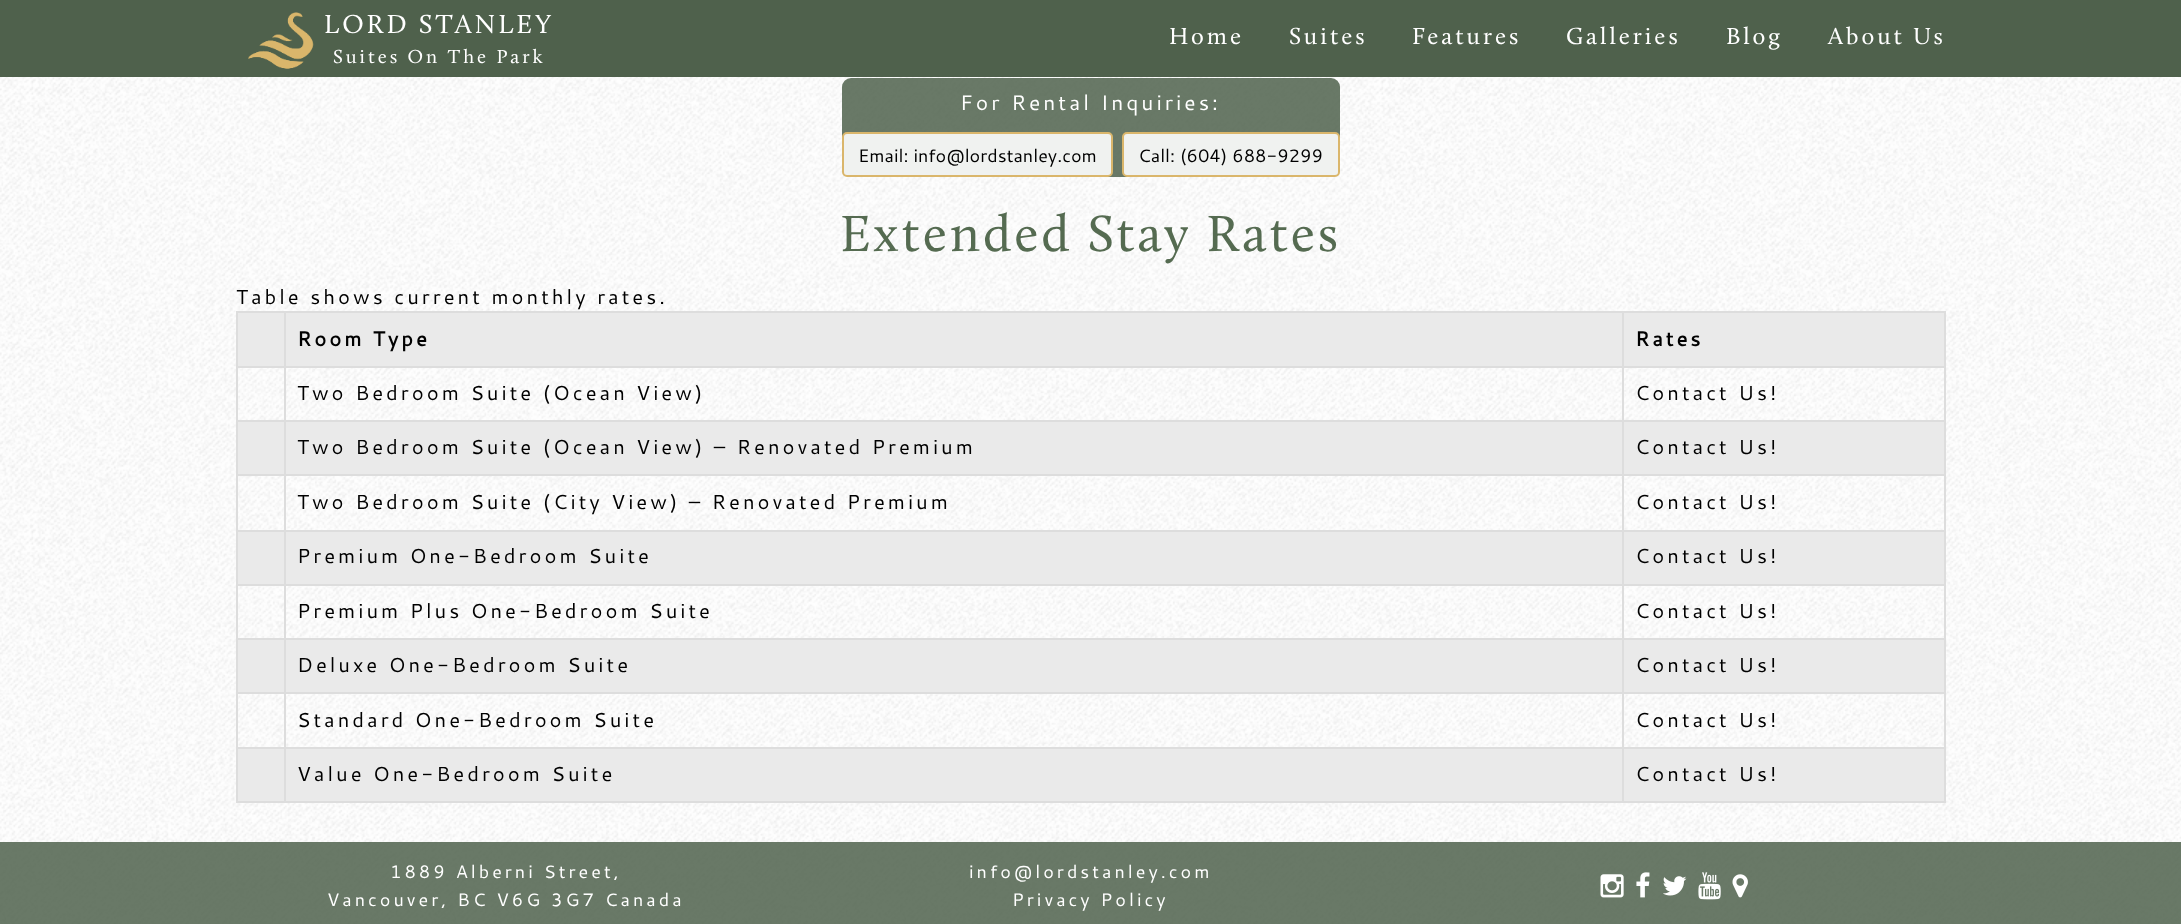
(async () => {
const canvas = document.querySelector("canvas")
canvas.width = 2181
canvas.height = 924
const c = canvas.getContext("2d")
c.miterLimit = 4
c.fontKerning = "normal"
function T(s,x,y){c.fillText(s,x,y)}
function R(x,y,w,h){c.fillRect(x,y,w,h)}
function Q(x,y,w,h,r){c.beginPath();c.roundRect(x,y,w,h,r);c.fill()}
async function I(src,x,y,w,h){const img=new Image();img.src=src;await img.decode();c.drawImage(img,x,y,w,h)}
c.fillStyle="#fff"
R(0,0,2181,924)
await I("1.png",0,77,2181,847)
c.fillStyle="#4f614c"
R(0,0,2181,77)
await I("2.png",248,12,66,57)
c.letterSpacing="3px"
c.font="27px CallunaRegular"
c.fillStyle="#fff"
T("LORD STANLEY",324,33)
c.font="19.5px CallunaRegular"
T("Suites On The Park",333,63)
c.font="24px CallunaRegular"
T("Home",1169,44)
T("Suites",1289,44)
T("Features",1412,44)
T("Galleries",1566,44)
T("Blog",1726,44)
T("About Us",1828,44)
c.fillStyle="#4f614cd9"
Q(842,78,498,99,9)
c.font="21px Cantarell"
c.fillStyle="#fff"
T("For Rental Inquiries:",960,110)
c.fillStyle="#ffffffe6"
c.beginPath()
c.roundRect(843,133,269,43,4)
c.fill()
c.strokeStyle="#dab66b"
c.lineWidth=2
c.stroke()
c.letterSpacing="0px"
c.font="18px Cantarell"
c.fillStyle="#000"
T("Email: info@lordstanley.com",858,162)
c.fillStyle="#ffffffe6"
c.beginPath()
c.roundRect(1123,133,216,43,4)
c.fill()
c.stroke()
c.fillStyle="#000"
T("Call: (604) 688-9299",1138,162)
c.letterSpacing="3px"
c.font="52.5px CallunaRegular"
c.fillStyle="#556b51"
T("Extended Stay Rates",840,251)
c.font="20.25px Cantarell"
c.fillStyle="#000"
T("Table shows current monthly rates.",236,304)
c.fillStyle="#ddd"
R(236,311,1710,2)
R(1944,311,2,492)
R(236,801,1710,2)
R(236,311,2,492)
c.fillStyle="#eaeaea"
R(238,313,1706,53)
c.fillStyle="#ddd"
R(1622,366,324,2)
R(1622,420,324,2)
c.fillStyle="#eaeaea"
R(238,422,1706,52)
c.fillStyle="#ddd"
R(1622,474,324,2)
R(1622,530,324,2)
c.fillStyle="#eaeaea"
R(238,532,1706,52)
c.fillStyle="#ddd"
R(1622,584,324,2)
R(1622,638,324,2)
c.fillStyle="#eaeaea"
R(238,640,1706,52)
c.fillStyle="#ddd"
R(1622,692,324,2)
R(1622,747,324,2)
c.fillStyle="#eaeaea"
R(238,749,1706,52)
c.fillStyle="#ddd"
R(1622,747,2,56)
R(284,747,1339,2)
R(1622,692,2,57)
R(284,692,1339,2)
R(1622,638,2,55)
R(284,638,1339,2)
R(1622,584,2,55)
R(284,584,1339,2)
R(1622,530,2,55)
R(284,530,1339,2)
R(1622,474,2,57)
R(284,474,1339,2)
R(1622,420,2,56)
R(284,420,1339,2)
R(1622,366,2,56)
R(284,366,1339,2)
R(284,747,2,56)
R(236,747,49,2)
R(284,692,2,57)
R(236,692,49,2)
R(284,638,2,55)
R(236,638,49,2)
R(284,584,2,55)
R(236,584,49,2)
R(284,530,2,55)
R(236,530,49,2)
R(284,474,2,57)
R(236,474,49,2)
R(284,420,2,56)
R(236,420,49,2)
R(284,366,2,56)
R(236,366,49,2)
R(284,311,2,57)
c.font="bold 20.25px Cantarell"
c.fillStyle="#000"
T("Room Type",297,346)
c.fillStyle="#ddd"
R(1622,311,2,57)
c.fillStyle="#000"
T("Rates",1635,346)
c.font="20.25px Cantarell"
T("Two Bedroom Suite (Ocean View)",297,400)
T("Contact Us!",1635,400)
T("Two Bedroom Suite (Ocean View) – Renovated Premium",297,454)
T("Contact Us!",1635,454)
T("Two Bedroom Suite (City View) – Renovated Premium",297,509)
T("Contact Us!",1635,509)
T("Premium One-Bedroom Suite",297,563)
T("Contact Us!",1635,563)
T("Premium Plus One-Bedroom Suite",297,618)
T("Contact Us!",1635,618)
T("Deluxe One-Bedroom Suite",297,672)
T("Contact Us!",1635,672)
T("Standard One-Bedroom Suite",297,727)
T("Contact Us!",1635,727)
T("Value One-Bedroom Suite",297,781)
T("Contact Us!",1635,781)
c.fillStyle="#4f614cd9"
R(0,842,2181,82)
c.font="18px Cantarell"
c.fillStyle="#fff"
T("1889 Alberni Street,",390,878)
T("Vancouver, BC V6G 3G7 Canada",327,906)
T("info@lordstanley.com",969,878)
T("Privacy Policy",1012,906)
await I("3.png",1600,874,24,24)
await I("4.png",1636,872,14,26)
await I("5.png",1663,876,24,20)
await I("6.png",1698,872,23,28)
await I("7.png",1732,874,16,24)
})()
